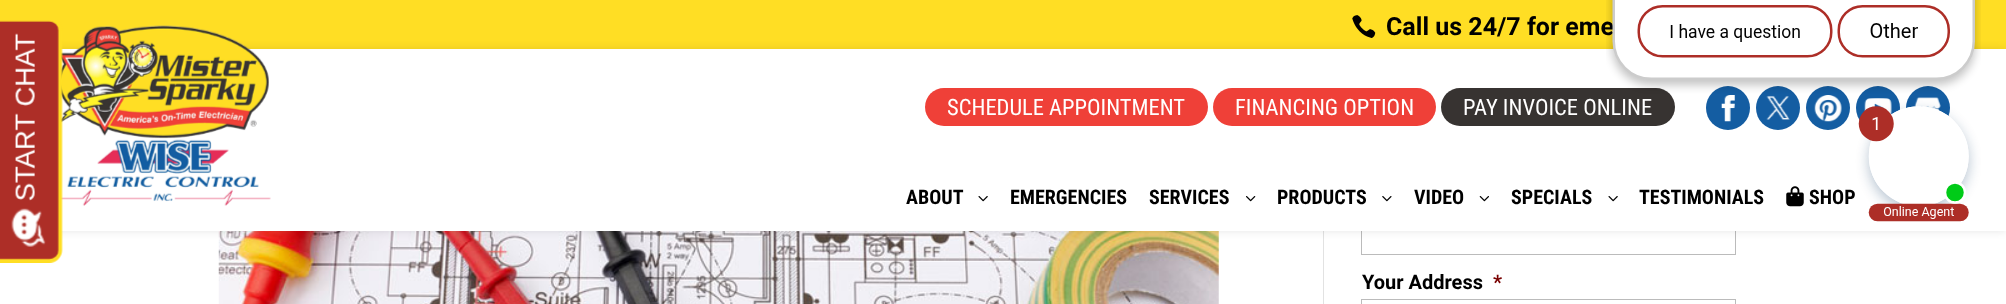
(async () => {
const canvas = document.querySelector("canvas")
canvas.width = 2006
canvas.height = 304
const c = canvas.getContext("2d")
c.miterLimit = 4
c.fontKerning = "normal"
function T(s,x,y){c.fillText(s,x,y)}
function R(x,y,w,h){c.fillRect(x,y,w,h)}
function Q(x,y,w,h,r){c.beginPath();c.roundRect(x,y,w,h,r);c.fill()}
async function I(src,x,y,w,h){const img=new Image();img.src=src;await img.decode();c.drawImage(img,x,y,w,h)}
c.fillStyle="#fff"
R(0,0,2006,304)
c.fillStyle="#ffde24"
R(0,0,2006,49)
c.font="bold 25px Roboto"
c.fillStyle="#000"
T("Call us 24/7 for eme",1386,35)
await I("3.png",1352,15,24,23)
c.fillStyle="#e2e2e2"
R(1323,231,1,73)
await I("15.png",218,231,1001,73)
c.strokeStyle="#bbb"
c.strokeRect(1361.5,216.5,374,38)
c.fillStyle="#0000001a"
c.filter="blur(4.5px)"
c.beginPath()
c.rect(0,49,2006,182)
c.fill()
c.filter="none"
c.fillStyle="#fff"
R(61,49,1945,182)
c.fillStyle="#373331"
Q(1441,88,234,38,19)
c.font="22.5px Roboto Condensed"
c.fillStyle="#fff"
T("PAY INVOICE ONLINE",1463,115)
c.fillStyle="#145da2"
c.beginPath()
c.arc(1728,108,22,0,7)
c.fill()
await I("5.png",1721,95,14,27)
c.beginPath()
c.arc(1778,108,22,0,7)
c.fill()
await I("6.png",1766,95,24,25)
c.beginPath()
c.arc(1828,108,22,0,7)
c.fill()
await I("7.png",1814,95,28,27)
c.beginPath()
c.arc(1878,108,22,0,7)
c.fill()
await I("8.png",1864,98,28,17)
c.beginPath()
c.arc(1928,108,22,0,7)
c.fill()
await I("9.png",1914,97,27,14)
await I("10.png",1608,196,10,6)
c.font="bold 20px Roboto Condensed"
c.fillStyle="#000"
T("TESTIMONIALS",1639,204)
await I("14.png",1786,186,18,21)
T("SHOP",1809,204)
await I("1.png",1606,0,375,222)
await I("4.png",61,25,210,181)
await I("2.png",0,20,63,243)
c.fillStyle="#ef4038"
Q(925,88,283,38,19)
c.font="22.5px Roboto Condensed"
c.fillStyle="#fff"
T("SCHEDULE APPOINTMENT",947,115)
c.fillStyle="#ef4038"
Q(1213,88,223,38,19)
c.fillStyle="#fff"
T("FINANCING OPTION",1235,115)
c.font="bold 20px Roboto Condensed"
c.fillStyle="#000"
T("ABOUT",906,204)
await I("10.png",978,196,10,6)
T("EMERGENCIES",1010,204)
T("SERVICES",1149,204)
await I("11.png",1246,196,10,6)
T("PRODUCTS",1277,204)
await I("12.png",1382,196,10,6)
T("VIDEO",1414,204)
await I("13.png",1479,196,10,6)
T("SPECIALS",1511,204)
c.font="bold 20px Roboto"
T("Your Address",1362,289)
c.fillStyle="#790000"
T("*",1493,289)
c.strokeRect(1361.5,299.5,374,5)
})()
